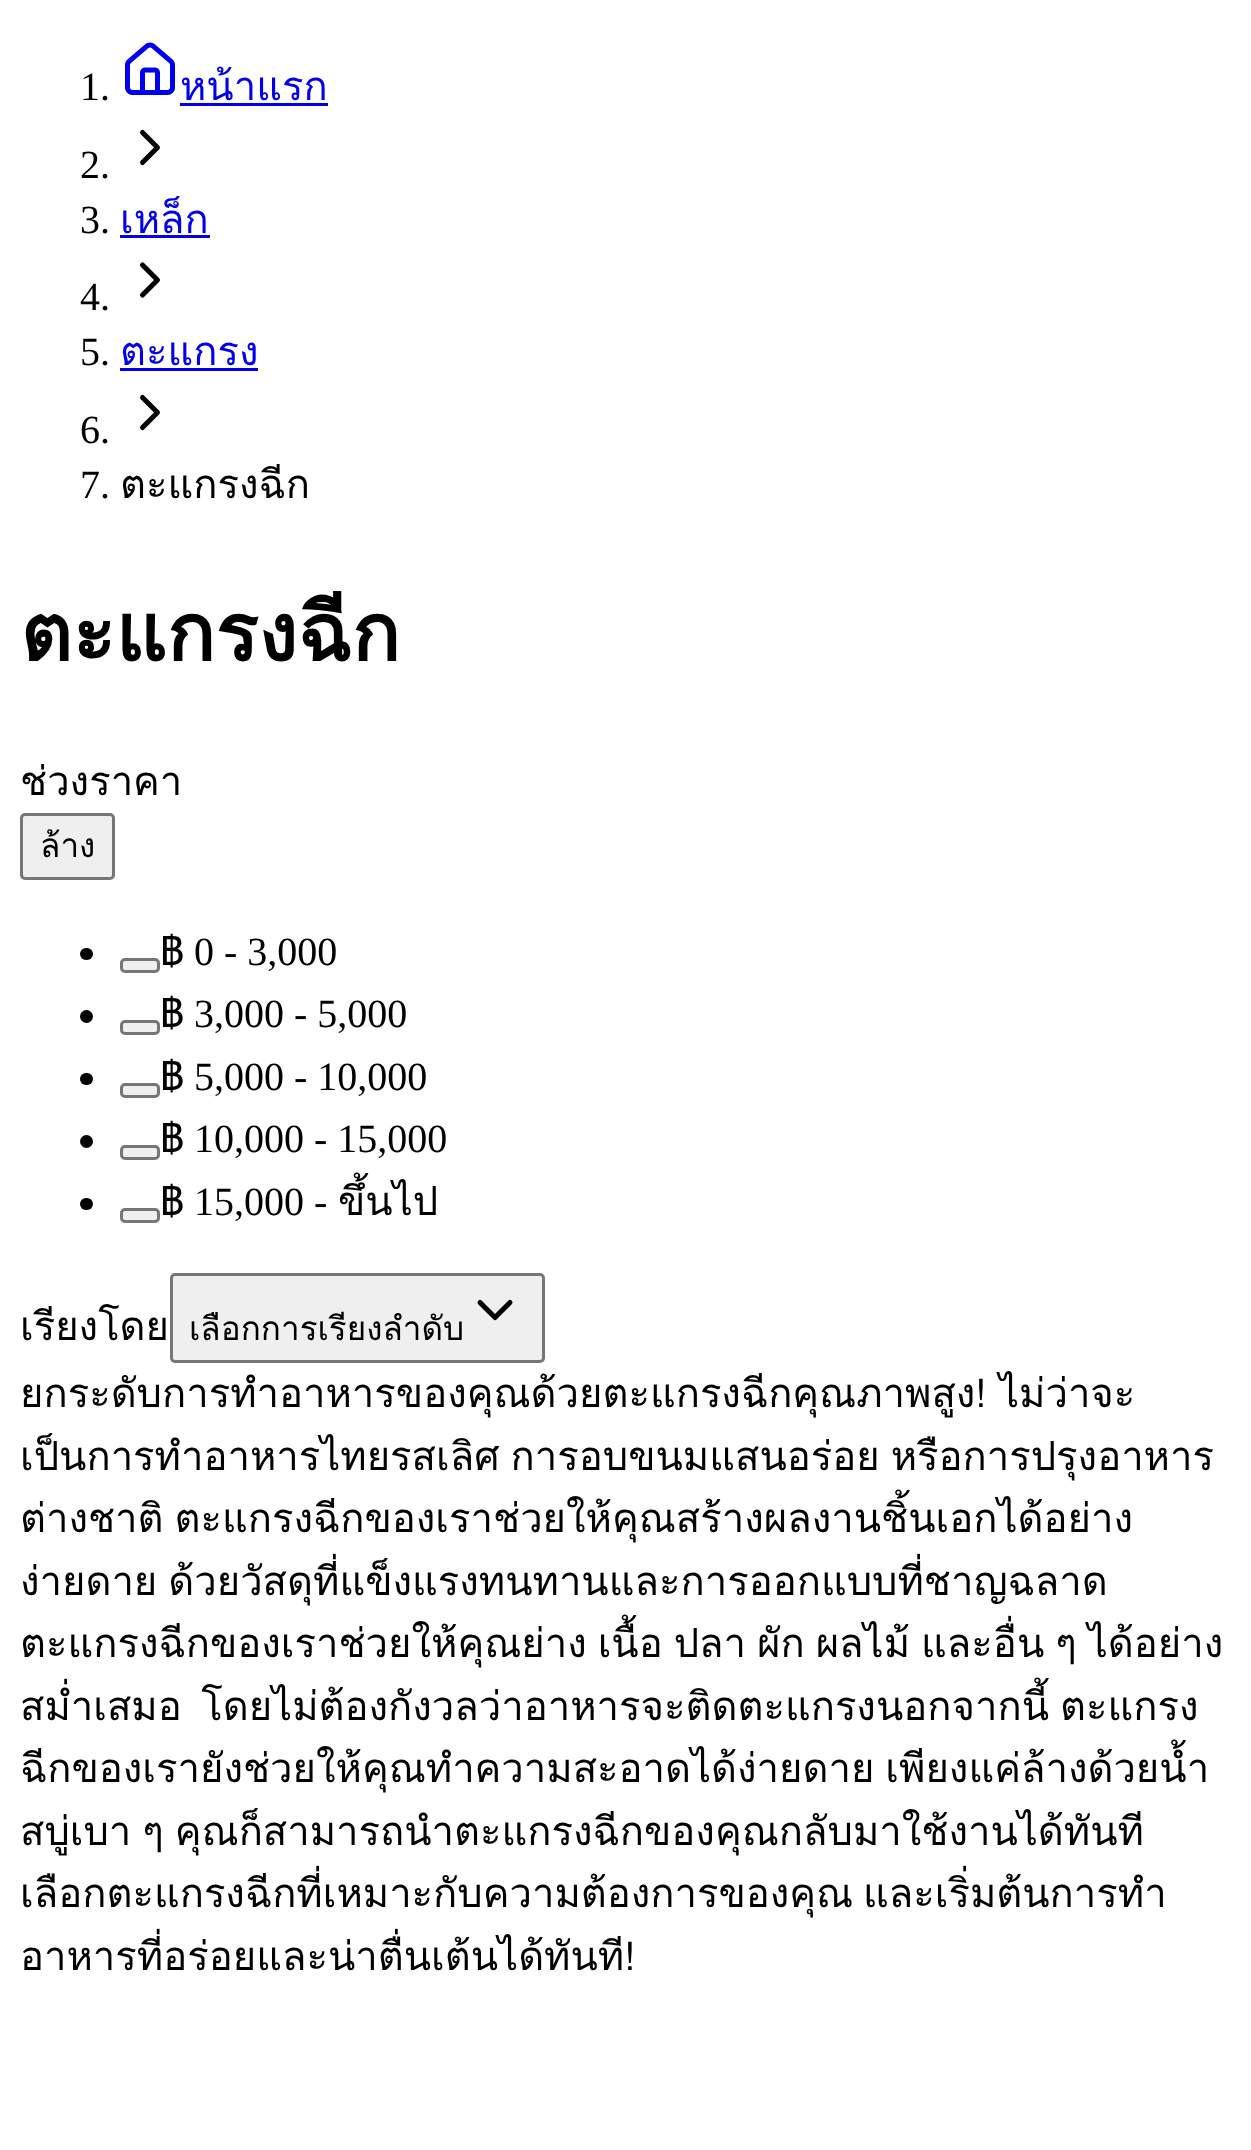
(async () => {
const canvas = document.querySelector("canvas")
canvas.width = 1251
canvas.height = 2150
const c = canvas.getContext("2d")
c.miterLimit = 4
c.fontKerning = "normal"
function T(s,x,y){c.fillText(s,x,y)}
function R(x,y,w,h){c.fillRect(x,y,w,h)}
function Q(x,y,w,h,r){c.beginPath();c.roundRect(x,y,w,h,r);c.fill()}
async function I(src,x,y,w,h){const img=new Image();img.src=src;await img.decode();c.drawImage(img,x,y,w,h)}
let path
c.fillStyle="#fff"
R(0,0,1251,2150)
c.font="40px Liberation Serif"
c.fillStyle="#000"
T("1.",80,100)
await I("1.png",125,42,50,53)
c.font="40px Loma"
c.fillStyle="#00e"
T("หน้าแรก",180,100)
R(180,103,148,3)
c.font="40px Liberation Serif"
c.fillStyle="#000"
T("2.",80,178)
path = new Path2D("M142.5 162.5l15-15l-15-15")
c.strokeStyle="#000"
c.lineWidth=5
c.lineCap="round"
c.lineJoin="round"
c.stroke(path)
T("3.",80,233)
c.font="40px Loma"
c.fillStyle="#00e"
T("เหล็ก",120,233)
R(120,235,90,3)
c.font="40px Liberation Serif"
c.fillStyle="#000"
T("4.",80,310)
path = new Path2D("M142.5 295l15-15l-15-15")
c.stroke(path)
T("5.",80,365)
c.font="40px Loma"
c.fillStyle="#00e"
T("ตะแกรง",120,365)
R(120,368,138,3)
c.font="40px Liberation Serif"
c.fillStyle="#000"
T("6.",80,443)
path = new Path2D("M142.5 427.5l15-15l-15-15")
c.stroke(path)
T("7.",80,498)
c.font="40px Loma"
T("ตะแกรงฉีก",120,498)
c.font="bold 80px Loma"
T("ตะแกรงฉีก",20,661)
c.font="40px Loma"
T("ช่วงราคา",20,795)
c.fillStyle="#efefef"
c.beginPath()
c.roundRect(21.5,814.5,92,64,3.5)
c.fill()
c.strokeStyle="#767676"
c.lineWidth=3
c.lineJoin="miter"
c.stroke()
c.font="33.25px Loma"
c.fillStyle="#000"
T("ล้าง",40,857)
Q(80,948,13,12,6)
c.fillStyle="#efefef"
c.beginPath()
c.roundRect(121.5,959.5,37,12,3.5)
c.fill()
c.stroke()
c.font="40px Loma"
c.fillStyle="#000"
T("฿",160,965)
c.font="40px Liberation Serif"
T("0 - 3,000",194,965)
c.beginPath()
c.arc(86.5,1016.5,6.5,0,7)
c.fill()
c.fillStyle="#efefef"
c.beginPath()
c.roundRect(121.5,1021.5,37,12,3.5)
c.fill()
c.stroke()
c.font="40px Loma"
c.fillStyle="#000"
T("฿",160,1027)
c.font="40px Liberation Serif"
T("3,000 - 5,000",194,1027)
Q(80,1073,13,12,6)
c.fillStyle="#efefef"
c.beginPath()
c.roundRect(121.5,1084.5,37,12,3.5)
c.fill()
c.stroke()
c.font="40px Loma"
c.fillStyle="#000"
T("฿",160,1090)
c.font="40px Liberation Serif"
T("5,000 - 10,000",194,1090)
c.beginPath()
c.arc(86.5,1141.5,6.5,0,7)
c.fill()
c.fillStyle="#efefef"
c.beginPath()
c.roundRect(121.5,1146.5,37,12,3.5)
c.fill()
c.stroke()
c.font="40px Loma"
c.fillStyle="#000"
T("฿",160,1152)
c.font="40px Liberation Serif"
T("10,000 - 15,000",194,1152)
Q(80,1198,13,12,6)
c.fillStyle="#efefef"
c.beginPath()
c.roundRect(121.5,1209.5,37,12,3.5)
c.fill()
c.stroke()
c.font="40px Loma"
c.fillStyle="#000"
T("฿",160,1215)
c.font="40px Liberation Serif"
T("15,000 -",194,1215)
c.font="40px Loma"
T("ขึ้นไป",338,1215)
T("เรียงโดย",20,1340)
c.fillStyle="#efefef"
c.beginPath()
c.roundRect(171.5,1274.5,372,87,3.5)
c.fill()
c.stroke()
c.font="33.25px Loma"
c.fillStyle="#000"
T("เลือกการเรียงลำดับ",189,1340)
path = new Path2D("M480 1302.5l15 15l15-15")
c.strokeStyle="#000"
c.lineWidth=5
c.lineJoin="round"
c.stroke(path)
c.wordSpacing="-1px"
c.font="40px Loma"
T("ยกระดับการทำอาหารของคุณด้วยตะแกรงฉีกคุณภาพสูง! ไม่ว่าจะ",20,1407)
c.wordSpacing="-2.5px"
T("เป็นการทำอาหารไทยรสเลิศ การอบขนมแสนอร่อย หรือการปรุงอาหาร",20,1470)
T("ต่างชาติ ตะแกรงฉีกของเราช่วยให้คุณสร้างผลงานชิ้นเอกได้อย่าง",20,1532)
T("ง่ายดาย ด้วยวัสดุที่แข็งแรงทนทานและการออกแบบที่ชาญฉลาด",20,1595)
T("ตะแกรงฉีกของเราช่วยให้คุณย่าง เนื้อ ปลา ผัก ผลไม้ และอื่น ๆ ได้อย่าง",20,1657)
c.wordSpacing="6px"
T("สม่ำเสมอ โดยไม่ต้องกังวลว่าอาหารจะติดตะแกรง",20,1720)
c.wordSpacing="-2.5px"
T("นอกจากนี้ ตะแกรง",876,1720)
T("ฉีกของเรายังช่วยให้คุณทำความสะอาดได้ง่ายดาย เพียงแค่ล้างด้วยน้ำ",20,1782)
T("สบู่เบา ๆ คุณก็สามารถนำตะแกรงฉีกของคุณกลับมาใช้งานได้ทันที",20,1845)
c.wordSpacing="0px"
T("เลือกตะแกรงฉีกที่เหมาะกับความต้องการของคุณ",20,1907)
T("และเริ่มต้นการทำ",863,1907)
T("อาหารที่อร่อยและน่าตื่นเต้นได้ทันที!",20,1970)
})()
